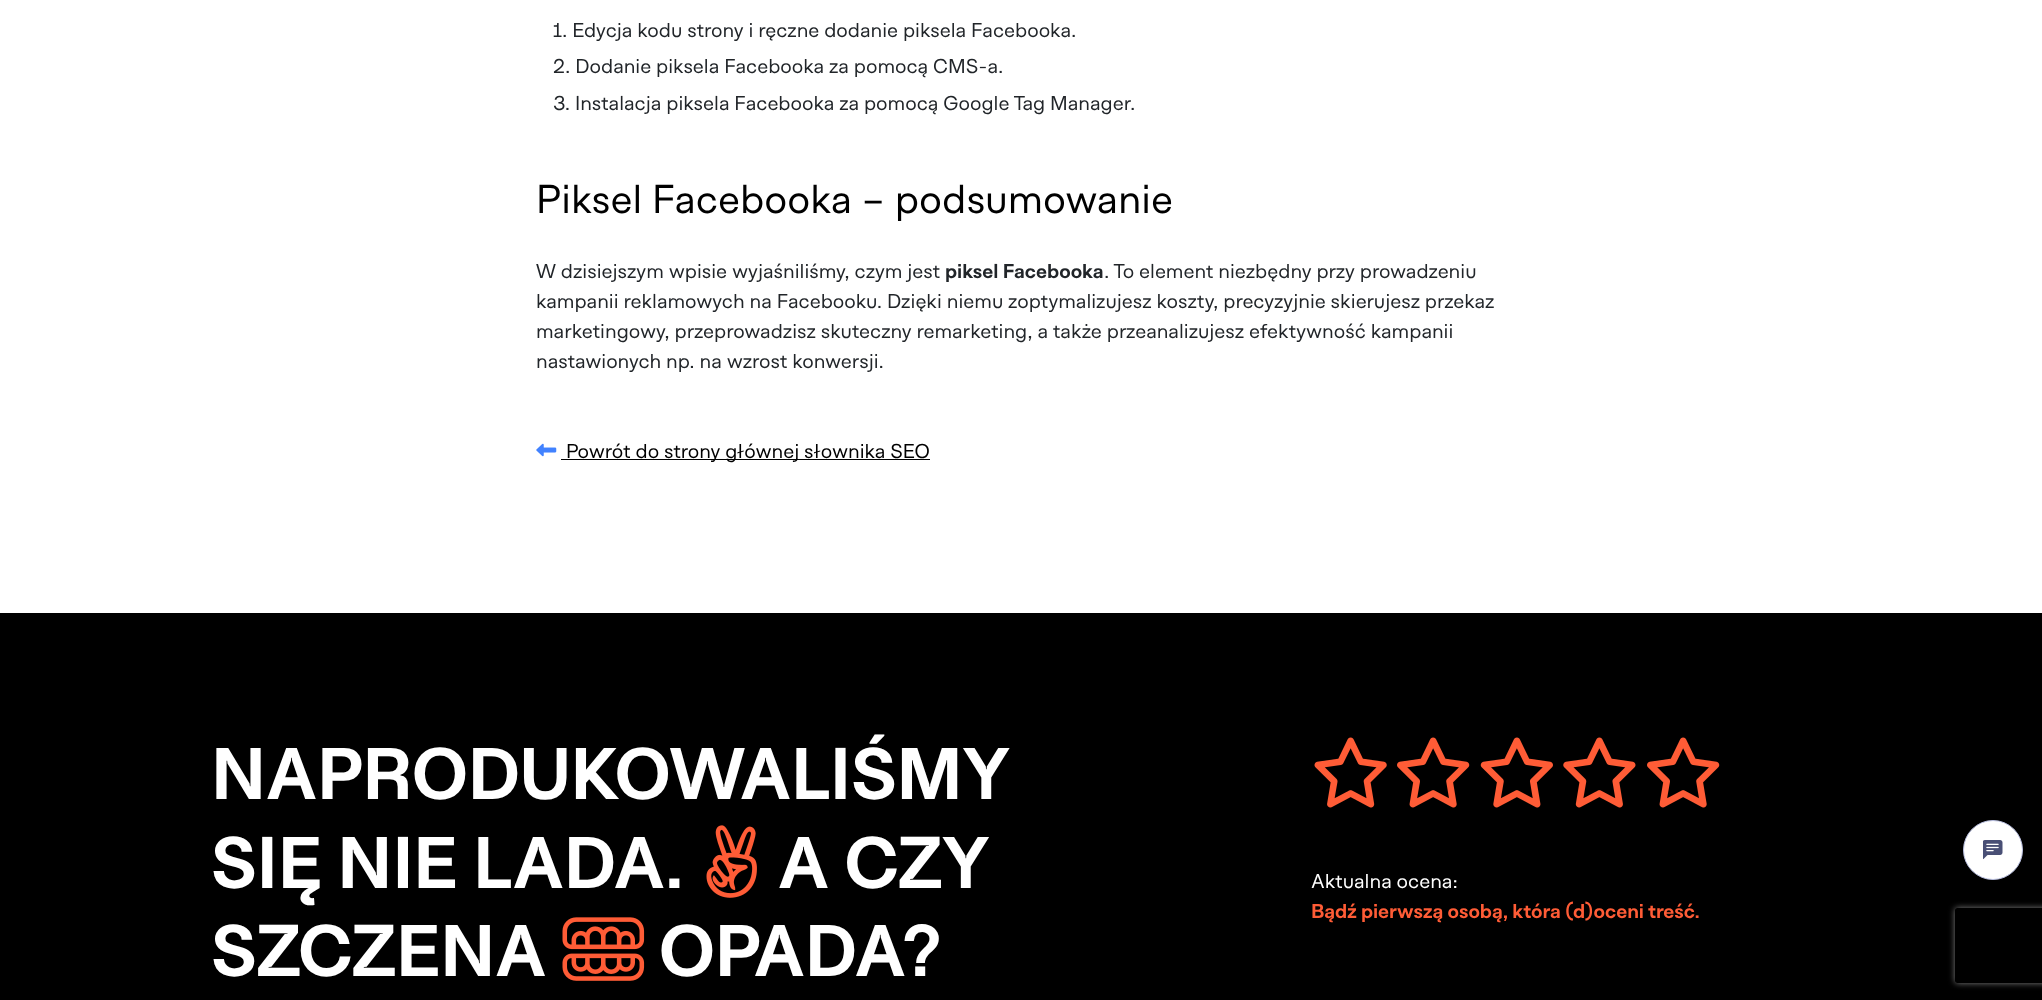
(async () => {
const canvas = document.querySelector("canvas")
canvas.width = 2042
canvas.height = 1000
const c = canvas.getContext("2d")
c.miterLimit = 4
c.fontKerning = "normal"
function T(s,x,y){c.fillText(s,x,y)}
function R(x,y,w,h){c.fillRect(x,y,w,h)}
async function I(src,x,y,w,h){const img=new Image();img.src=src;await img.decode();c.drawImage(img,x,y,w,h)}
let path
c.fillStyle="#fff"
R(0,0,2042,1000)
c.font="20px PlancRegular"
c.fillStyle="#212529"
T("1. Edycja kodu strony i ręczne dodanie piksela Facebooka.",553,37)
T("2. Dodanie piksela Facebooka za pomocą CMS-a.",553,73)
T("3. Instalacja piksela Facebooka za pomocą Google Tag Manager.",553,110)
c.font="40px PlancRegular"
c.fillStyle="#000"
T("Piksel Facebooka – podsumowanie",536,213)
c.font="20px PlancRegular"
c.fillStyle="#212529"
T("W dzisiejszym wpisie wyjaśniliśmy, czym jest",536,278)
c.font="bold 20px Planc"
T("piksel Facebooka",945,278)
c.font="20px PlancRegular"
T(". To element niezbędny przy prowadzeniu",1104,278)
T("kampanii reklamowych na Facebooku. Dzięki niemu zoptymalizujesz koszty, precyzyjnie skierujesz przekaz",536,308)
T("marketingowy, przeprowadzisz skuteczny remarketing, a także przeanalizujesz efektywność kampanii",536,338)
T("nastawionych np. na wzrost konwersji.",536,368)
await I("1.png",536,443,21,14)
c.fillStyle="#000"
R(561,459,369,1)
T("Powrót do strony głównej słownika SEO",566,458)
R(0,613,2042,387)
c.font="bold 72.5px Planc"
c.fillStyle="#fff"
T("NAPRODUKOWALIŚMY",211,799)
T("SIĘ NIE LADA.",211,888)
await I("2.png",706,825,51,73)
T("A CZY",778,888)
T("SZCZENA",211,976)
await I("3.png",562,917,83,64)
T("OPADA?",659,976)
await I("4.png",1314,737,73,71)
await I("5.png",1397,737,73,71)
await I("6.png",1480,737,73,71)
await I("7.png",1563,737,73,71)
await I("5.png",1647,737,73,71)
c.font="20px PlancRegular"
T("Aktualna ocena:",1311,888)
c.font="bold 20px Planc"
c.fillStyle="#ff5c36"
T("Bądź pierwszą osobą, która (d)oceni treść.",1311,918)
c.fillStyle="#fff"
c.beginPath()
c.arc(1993,850,29.5,0,7)
c.fill()
c.strokeStyle="#b8bedf"
c.stroke()
await I("8.png",1983,840,20,20)
c.save()
path = new Path2D("M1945 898h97v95h-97zm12.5 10h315c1.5 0 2.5 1 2.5 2.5v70c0 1.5-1 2.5-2.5 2.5h-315c-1.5 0-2.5-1-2.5-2.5v-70c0-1.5 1-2.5 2.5-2.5z")
c.clip(path,"evenodd")
c.fillStyle="#808080"
c.filter="blur(3px)"
c.beginPath()
c.roundRect(1955,908,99,75,2.5)
c.fill()
c.filter="none"
c.restore()
})()
